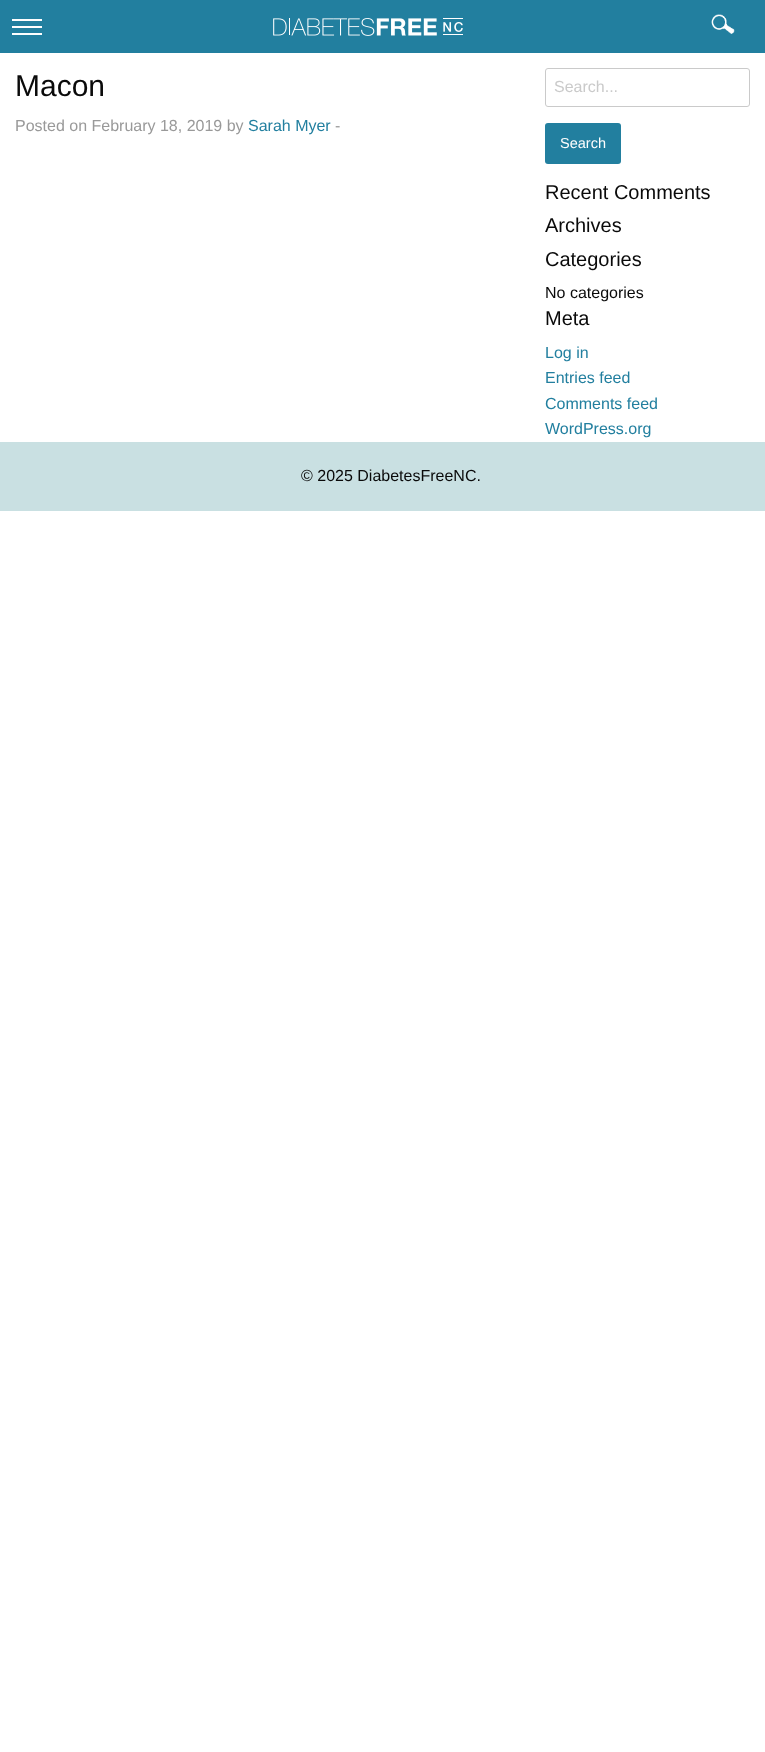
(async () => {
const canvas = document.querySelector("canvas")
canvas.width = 765
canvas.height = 1752
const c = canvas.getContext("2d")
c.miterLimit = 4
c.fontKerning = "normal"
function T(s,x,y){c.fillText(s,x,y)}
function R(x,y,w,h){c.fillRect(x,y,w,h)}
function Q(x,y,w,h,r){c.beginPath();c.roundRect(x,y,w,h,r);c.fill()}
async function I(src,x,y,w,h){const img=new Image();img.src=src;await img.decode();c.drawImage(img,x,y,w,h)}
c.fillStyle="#fff"
R(0,0,765,1752)
c.fillStyle="#227f9f"
R(0,0,765,53)
c.fillStyle="#fefefe"
R(12,33,30,2)
R(12,26,30,2)
R(12,19,30,2)
await I("1.png",273,18,190,18)
await I("2.png",711,14,24,20)
c.font="30px Liberation Sans"
c.fillStyle="#0a0a0a"
T("Macon",15,96)
c.font="16px Liberation Sans"
c.fillStyle="#999"
T("Posted on February 18, 2019 by",15,131)
c.fillStyle="#227f9f"
T("Sarah Myer",248,131)
c.fillStyle="#999"
T("-",335,131)
c.beginPath()
c.roundRect(545.5,68.5,204,38,2.5)
c.strokeStyle="#cacaca"
c.stroke()
c.fillStyle="#cacaca"
T("Search...",554,92)
c.fillStyle="#227f9f"
Q(545,123,76,41,3)
c.font="14.5px Liberation Sans"
c.fillStyle="#fefefe"
T("Search",560,148)
c.font="20px Liberation Sans"
c.fillStyle="#0a0a0a"
T("Recent Comments",545,199)
T("Archives",545,232)
T("Categories",545,266)
c.font="16px Liberation Sans"
T("No categories",545,298)
c.font="20px Liberation Sans"
T("Meta",545,325)
c.font="16px Liberation Sans"
c.fillStyle="#227f9f"
T("Log in",545,358)
T("Entries feed",545,383)
T("Comments feed",545,409)
T("WordPress.org",545,434)
c.fillStyle="#c9e0e2"
R(0,442,765,69)
c.fillStyle="#0a0a0a"
T("© 2025 DiabetesFreeNC.",301,481)
})()
